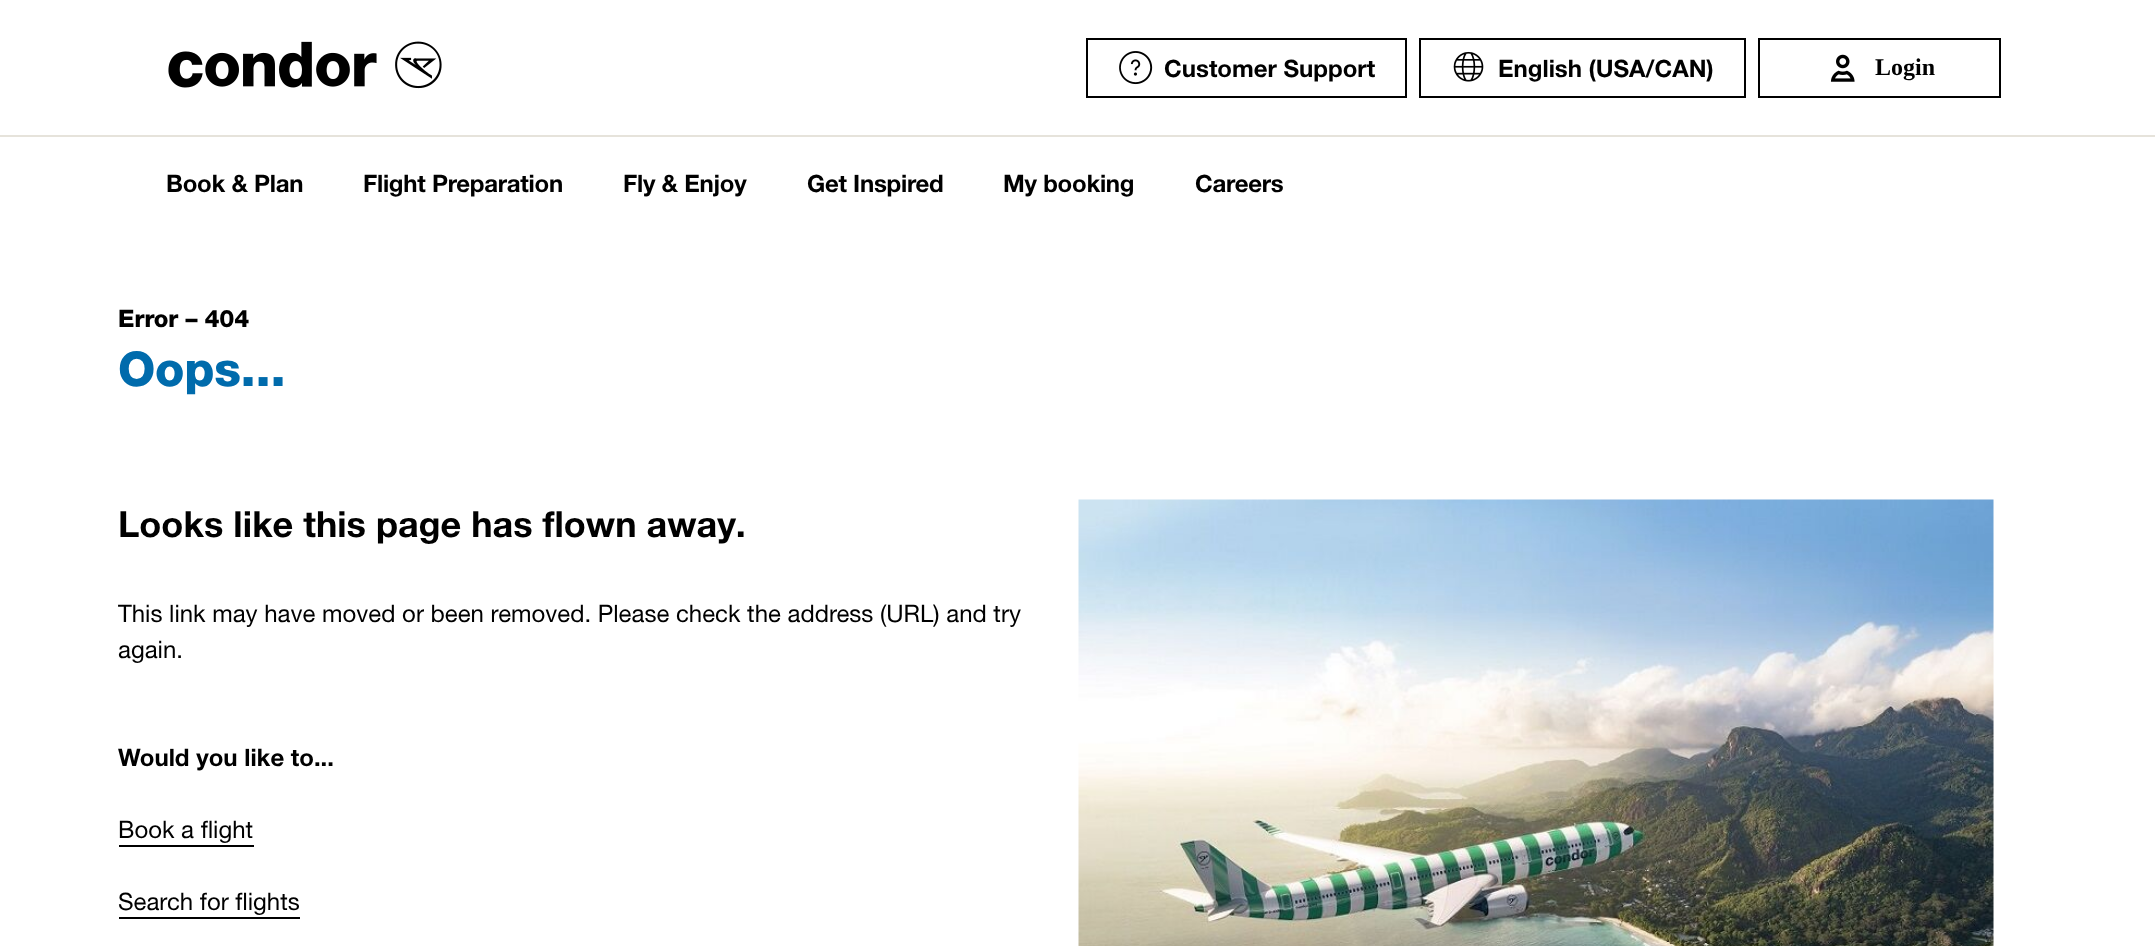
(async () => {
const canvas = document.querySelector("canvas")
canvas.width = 2155
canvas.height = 946
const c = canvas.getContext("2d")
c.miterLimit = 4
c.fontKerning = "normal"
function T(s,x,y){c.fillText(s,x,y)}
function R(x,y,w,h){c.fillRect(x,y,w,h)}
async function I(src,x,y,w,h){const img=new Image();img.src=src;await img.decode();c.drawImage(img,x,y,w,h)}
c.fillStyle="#fff"
R(0,0,2155,946)
await I("1.png",168,41,274,48)
c.strokeStyle="#000"
c.lineWidth=2
c.strokeRect(1087,39,319,58)
await I("2.png",1119,51,34,34)
c.font="bold 24px Helvetica Neue"
c.fillStyle="#000"
T("Customer Support",1164,77)
c.strokeRect(1420,39,325,58)
await I("3.png",1453,51,31,31)
T("English (USA/CAN)",1498,77)
c.strokeRect(1759,39,241,58)
await I("4.png",1830,54,25,28)
c.font="bold 24px Liberation Serif"
T("Login",1875,75)
c.fillStyle="#e6e3db"
R(0,135,2155,2)
c.letterSpacing="-0.25px"
c.font="bold 24px Helvetica Neue"
c.fillStyle="#000"
T("Book & Plan",166,192)
T("Flight Preparation",363,192)
T("Fly & Enjoy",623,192)
T("Get Inspired",807,192)
T("My booking",1003,192)
T("Careers",1195,192)
c.font="800 24px Helvetica Neue"
T("Error – 404",118,327)
c.font="800 48px Helvetica Neue"
c.fillStyle="#006bac"
T("Oops...",118,386)
c.letterSpacing="0px"
c.font="bold 36px Helvetica Neue"
c.fillStyle="#000"
T("Looks like this page has flown away.",118,537)
c.font="24px Helvetica Neue"
T("This link may have moved or been removed. Please check the address (URL) and try",118,622)
T("again.",118,658)
c.font="bold 24px Helvetica Neue"
T("Would you like to...",118,766)
c.font="24px Helvetica Neue"
T("Book a flight",118,838)
R(119,845,135,2)
T("Search for flights",118,910)
R(119,917,181,2)
await I("5.png",1078,499,916,447)
})()
